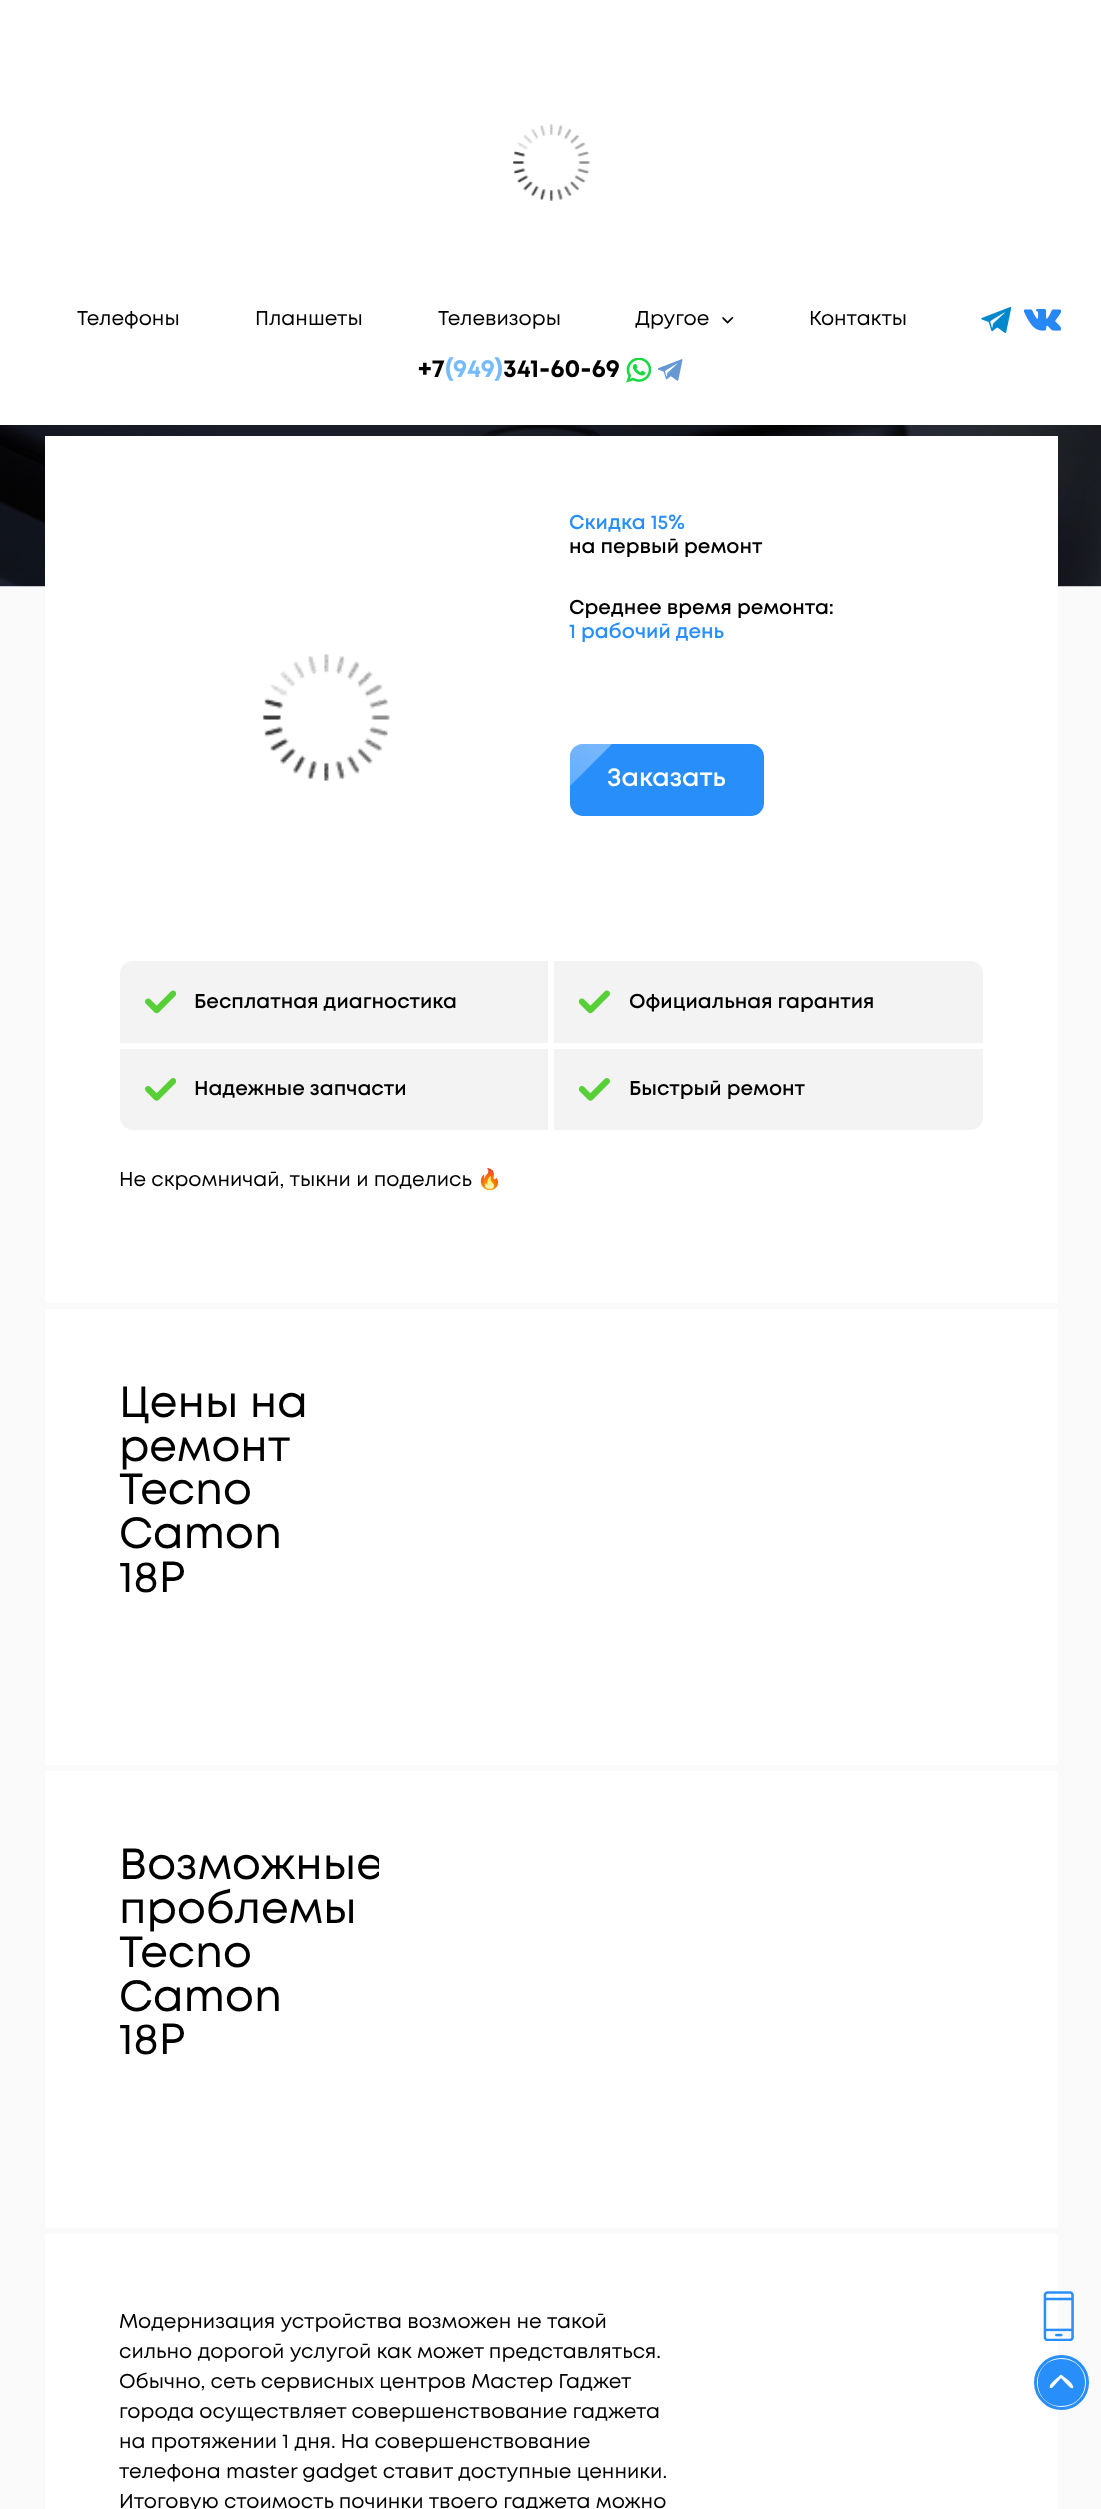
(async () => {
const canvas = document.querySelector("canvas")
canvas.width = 1101
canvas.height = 2509
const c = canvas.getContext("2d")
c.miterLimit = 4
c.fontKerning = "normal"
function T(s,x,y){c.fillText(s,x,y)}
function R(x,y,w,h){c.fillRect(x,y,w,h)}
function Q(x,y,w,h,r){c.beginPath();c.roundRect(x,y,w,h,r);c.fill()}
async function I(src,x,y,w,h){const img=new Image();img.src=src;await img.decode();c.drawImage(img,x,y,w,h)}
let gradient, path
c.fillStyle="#fafafa"
R(0,0,1101,2509)
c.fillStyle="#fff"
R(0,0,1101,425)
await I("1.png",512,124,79,77)
c.font="20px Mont"
c.fillStyle="#000"
T("Телефоны",77,325)
T("Планшеты",255,325)
T("Телевизоры",438,325)
T("Другое",635,325)
await I("2.png",722,317,12,7)
T("Контакты",809,325)
await I("3.png",981,307,30,26)
await I("4.png",1024,309,37,22)
c.font="bold 25px Mont"
T("+7",418,377)
c.fillStyle="#76baff"
T("(949)",445,377)
c.fillStyle="#000"
T("341-60-69",503,377)
await I("5.png",626,358,25,25)
await I("6.png",658,359,25,22)
await I("7.png",0,425,1101,162)
c.fillStyle="#fff"
R(45,436,1013,867)
await I("8.png",262,654,128,127)
c.font="600 20px Mont"
c.fillStyle="#288efa"
T("Скидка 15%",569,529)
c.fillStyle="#000"
T("на первый ремонт",569,553)
T("Среднее время ремонта:",569,614)
c.fillStyle="#288efa"
T("1 рабочий день",569,638)
Q(570,744,194,72,13)
c.font="600 25px Mont"
c.fillStyle="#fff"
T("Заказать",607,786)
gradient = c.createLinearGradient(683,655,506,832)
gradient.addColorStop(0,"#76baffb3")
gradient.addColorStop(.5,"#d2e8ff75")
gradient.addColorStop(1,"#8ec6ff59")
c.fillStyle = gradient
path = new Path2D("M583 744h29l-42 42v-29c0-7 6-13 13-13z")
c.fill(path)
c.fillStyle="#f3f3f3"
c.beginPath()
c.roundRect(120,961,428,82,[13,0,0,0])
c.fill()
await I("9.png",145,990,31,24)
c.font="600 20px Mont"
c.fillStyle="#000"
T("Бесплатная диагностика",194,1008)
c.fillStyle="#f3f3f3"
c.beginPath()
c.roundRect(554,961,429,82,[0,13,0,0])
c.fill()
await I("10.png",579,990,31,24)
c.fillStyle="#000"
T("Официальная гарантия",629,1008)
c.fillStyle="#f3f3f3"
c.beginPath()
c.roundRect(120,1049,428,81,[0,0,0,13])
c.fill()
await I("11.png",145,1078,31,23)
c.fillStyle="#000"
T("Надежные запчасти",194,1095)
c.fillStyle="#f3f3f3"
c.beginPath()
c.roundRect(554,1049,429,81,[0,0,13,0])
c.fill()
await I("12.png",579,1078,31,23)
c.fillStyle="#000"
T("Быстрый ремонт",629,1095)
c.font="20px Mont"
T("Не скромничай, тыкни и поделись",119,1186)
c.font="20px Noto Color Emoji"
T("🔥",477,1186)
c.fillStyle="#fff"
R(45,1309,1013,456)
c.font="43.75px Mont"
c.fillStyle="#000"
T("Цены на",119,1417)
T("ремонт",119,1461)
T("Tecno",119,1504)
T("Camon",119,1548)
T("18P",119,1592)
c.fillStyle="#fff"
R(45,1771,1013,457)
c.fillStyle="#000"
T("Возможные",119,1879)
T("проблемы",119,1923)
T("Tecno",119,1967)
T("Camon",119,2011)
T("18P",119,2054)
c.fillStyle="#fff"
c.beginPath()
c.roundRect(379,1846,604,307,[0,13,13,0])
c.fill()
R(45,2234,1013,275)
c.font="20px Mont"
c.fillStyle="#000"
T("Модернизация устройства возможен не такой",119,2328)
T("сильно дорогой услугой как может представляться.",119,2358)
T("Обычно, сеть сервисных центров Мастер Гаджет",119,2388)
T("города осуществляет совершенствование гаджета",119,2418)
T("на протяжении 1 дня. На совершенствование",119,2448)
T("телефона master gadget ставит доступные ценники.",119,2478)
T("Итоговую стоимость починки твоего гаджета можно",119,2508)
await I("13.png",1043,2291,31,50)
c.save()
c.beginPath()
c.rect(1038,2359,47,47)
c.clip()
c.fillStyle="#288efa"
path = new Path2D("M1061 2359c-31 0-31 47 0 47c32 0 32-47 0-47zm12 29c-2 2-10-8-12-10l-9 10h-2c-2-3 5-8 7-10c4-3 3-5 7-1c2 1 11 8 9 11z")
c.fill(path)
c.restore()
c.beginPath()
c.arc(1061.5,2382.5,26,0,7)
c.strokeStyle="#288efa"
c.lineWidth=3
c.stroke()
})()
